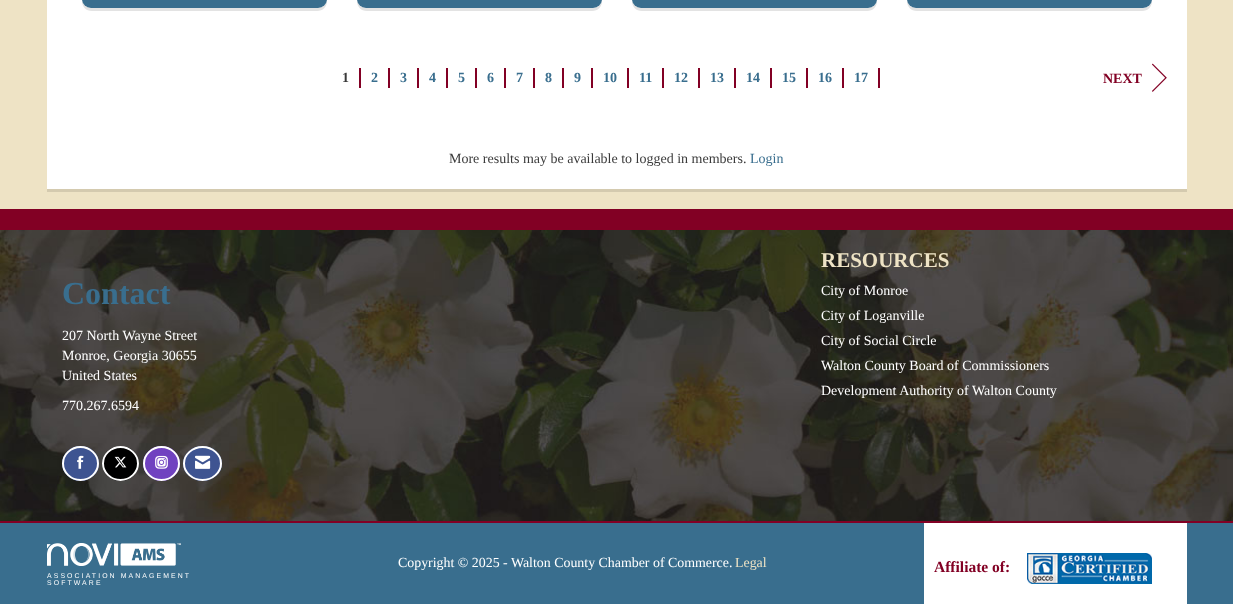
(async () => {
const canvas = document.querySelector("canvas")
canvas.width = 1233
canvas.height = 604
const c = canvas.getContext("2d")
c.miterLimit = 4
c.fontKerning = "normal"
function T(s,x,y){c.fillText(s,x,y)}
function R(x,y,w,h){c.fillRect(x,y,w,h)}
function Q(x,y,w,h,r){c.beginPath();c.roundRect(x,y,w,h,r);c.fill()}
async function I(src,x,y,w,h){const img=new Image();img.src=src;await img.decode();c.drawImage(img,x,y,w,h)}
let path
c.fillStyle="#eee3c5"
R(0,0,1233,604)
c.fillStyle="#d4caaf"
R(47,189,1140,3)
c.fillStyle="#fff"
R(47,0,1140,189)
c.fillStyle="#e3e3e3"
path = new Path2D("M82-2v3c0 6 4 10 10 10h225c6 0 10-4 10-10v-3c0 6-4 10-10 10h-225c-6 0-10-4-10-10z")
c.fill(path)
c.fillStyle="#396e8e"
Q(82,-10,245,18,10)
c.fillStyle="#e3e3e3"
path = new Path2D("M357-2v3c0 6 4 10 10 10h225c6 0 10-4 10-10v-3c0 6-4 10-10 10h-225c-6 0-10-4-10-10z")
c.fill(path)
c.fillStyle="#396e8e"
Q(357,-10,245,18,10)
c.fillStyle="#e3e3e3"
path = new Path2D("M632-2v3c0 6 4 10 10 10h225c6 0 10-4 10-10v-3c0 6-4 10-10 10h-225c-6 0-10-4-10-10z")
c.fill(path)
c.fillStyle="#396e8e"
Q(632,-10,245,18,10)
c.fillStyle="#e3e3e3"
path = new Path2D("M907-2v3c0 6 4 10 10 10h225c6 0 10-4 10-10v-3c0 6-4 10-10 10h-225c-6 0-10-4-10-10z")
c.fill(path)
c.fillStyle="#396e8e"
Q(907,-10,245,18,10)
c.fillStyle="#820024"
R(359,68,2,20)
c.font="bold 14px Liberation Serif"
c.fillStyle="#3a3a3a"
T("1",342,82)
c.fillStyle="#820024"
R(388,68,2,20)
c.fillStyle="#396e8e"
T("2",371,82)
c.fillStyle="#820024"
R(417,68,2,20)
c.fillStyle="#396e8e"
T("3",400,82)
c.fillStyle="#820024"
R(446,68,2,20)
c.fillStyle="#396e8e"
T("4",429,82)
c.fillStyle="#820024"
R(475,68,2,20)
c.fillStyle="#396e8e"
T("5",458,82)
c.fillStyle="#820024"
R(504,68,2,20)
c.fillStyle="#396e8e"
T("6",487,82)
c.fillStyle="#820024"
R(533,68,2,20)
c.fillStyle="#396e8e"
T("7",516,82)
c.fillStyle="#820024"
R(562,68,2,20)
c.fillStyle="#396e8e"
T("8",545,82)
c.fillStyle="#820024"
R(591,68,2,20)
c.fillStyle="#396e8e"
T("9",574,82)
c.fillStyle="#820024"
R(627,68,2,20)
c.fillStyle="#396e8e"
T("10",603,82)
c.fillStyle="#820024"
R(662,68,2,20)
c.fillStyle="#396e8e"
T("11",639,82)
c.fillStyle="#820024"
R(698,68,2,20)
c.fillStyle="#396e8e"
T("12",674,82)
c.fillStyle="#820024"
R(734,68,2,20)
c.fillStyle="#396e8e"
T("13",710,82)
c.fillStyle="#820024"
R(770,68,2,20)
c.fillStyle="#396e8e"
T("14",746,82)
c.fillStyle="#820024"
R(806,68,2,20)
c.fillStyle="#396e8e"
T("15",782,82)
c.fillStyle="#820024"
R(842,68,2,20)
c.fillStyle="#396e8e"
T("16",818,82)
c.fillStyle="#820024"
R(878,68,2,20)
c.fillStyle="#396e8e"
T("17",854,82)
c.fillStyle="#820024"
T("NEXT",1103,83)
await I("1.png",1152,63,15,29)
c.font="14px Liberation Serif"
c.fillStyle="#3a3a3a"
T("More results may be available to logged in members.",449,163)
c.fillStyle="#396e8e"
T("Login",750,163)
c.fillStyle="#820024"
R(0,209,1233,21)
await I("2.png",0,230,1233,291)
c.font="bold 32px Liberation Serif"
c.fillStyle="#396e8e"
T("Contact",62,304)
c.font="14px Liberation Serif"
c.fillStyle="#fff"
T("207 North Wayne Street",62,340)
T("Monroe, Georgia 30655",62,360)
T("United States",62,380)
T("770.267.6594",62,410)
c.fillStyle="#3e5491"
c.beginPath()
c.ellipse(80.5,463.5,18.5,17.5,0,0,7)
c.fill()
path = new Path2D("M80.5 447c9.5 0 17.5 7.5 17.5 16.5c0 9-8 16.5-17.5 16.5c-9.5 0-17.5-7.5-17.5-16.5c0-9 8-16.5 17.5-16.5z")
c.strokeStyle="#fff"
c.lineWidth=2
c.stroke(path)
await I("3.png",77,455,7,14)
c.fillStyle="#000"
c.beginPath()
c.ellipse(120.5,463.5,18.5,17.5,0,0,7)
c.fill()
path = new Path2D("M120.5 447c9.5 0 17.5 7.5 17.5 16.5c0 9-8 16.5-17.5 16.5c-9.5 0-17.5-7.5-17.5-16.5c0-9 8-16.5 17.5-16.5z")
c.stroke(path)
await I("4.png",114,456,13,12)
c.fillStyle="#7042c0"
c.beginPath()
c.ellipse(161.5,463.5,18.5,17.5,0,0,7)
c.fill()
path = new Path2D("M161.5 447c9.5 0 17.5 7.5 17.5 16.5c0 9-8 16.5-17.5 16.5c-9.5 0-17.5-7.5-17.5-16.5c0-9 8-16.5 17.5-16.5z")
c.stroke(path)
await I("5.png",155,455,13,14)
c.fillStyle="#3e5491"
c.beginPath()
c.ellipse(202.5,463.5,19.5,17.5,0,0,7)
c.fill()
path = new Path2D("M202.5 447c10 0 18.5 7.5 18.5 16.5c0 9-8.5 16.5-18.5 16.5c-10 0-18.5-7.5-18.5-16.5c0-9 8.5-16.5 18.5-16.5z")
c.stroke(path)
await I("6.png",195,455,16,14)
c.font="bold 21px Liberation Serif"
c.fillStyle="#eee3c5"
T("RESOURCES",821,267)
c.font="14px Liberation Serif"
c.fillStyle="#fff"
T("City of Monroe",821,295)
T("City of Loganville",821,320)
T("City of Social Circle",821,345)
T("Walton County Board of Commissioners",821,370)
T("Development Authority of Walton County",821,395)
c.fillStyle="#396e8e"
R(0,523,1233,81)
c.fillStyle="#820024"
R(0,521,1233,2)
c.font="13.9px Liberation Serif"
c.fillStyle="#fff"
T("Copyright © 2025 - Walton County Chamber of Commerce.",398,567)
c.fillStyle="#eee3c5"
T("Legal",735,567)
c.fillStyle="#fff"
R(924,523,263,81)
c.font="bold 15.5px Liberation Serif"
c.fillStyle="#820024"
T("Affiliate of:",934,572)
await I("7.png",1027,553,125,31)
await I("8.png",47,543,134,23)
c.letterSpacing="2.1px"
c.font="6.9px Liberation Sans"
c.fillStyle="#fff"
T("ASSOCIATION MANAGEMENT",47,578)
T("SOFTWARE",47,585)
})()
